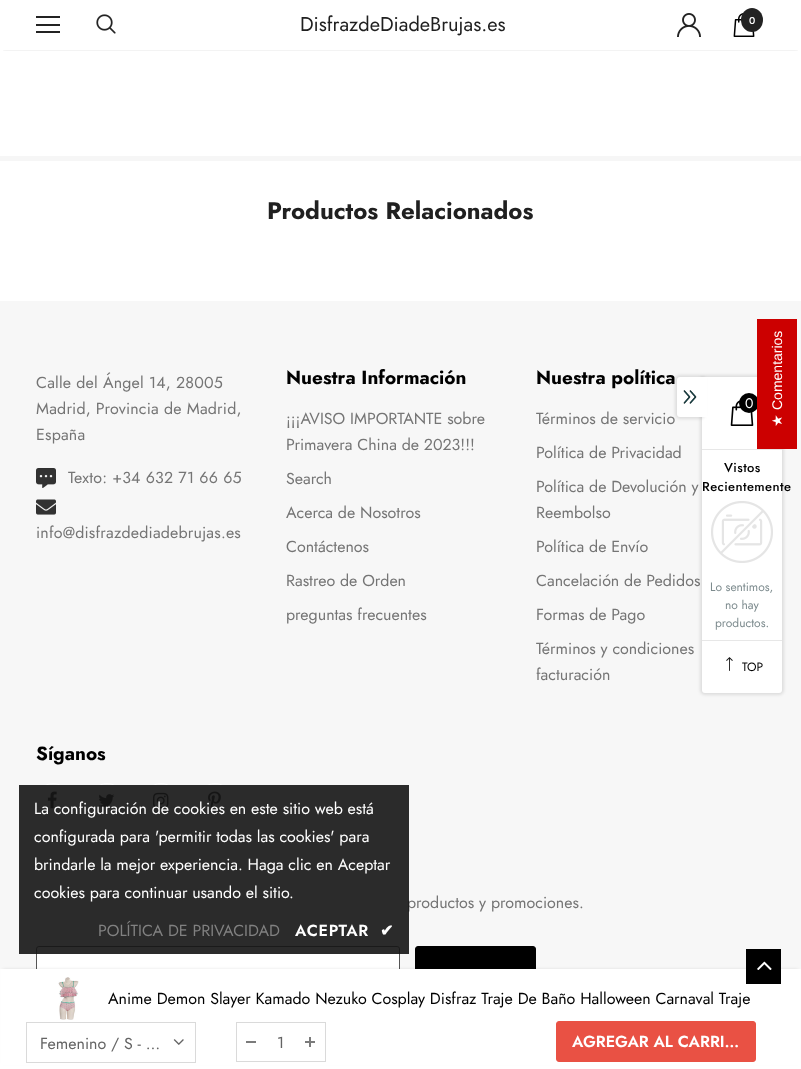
(async () => {
const canvas = document.querySelector("canvas")
canvas.width = 801
canvas.height = 1069
const c = canvas.getContext("2d")
c.miterLimit = 4
c.fontKerning = "normal"
function T(s,x,y){c.fillText(s,x,y)}
function R(x,y,w,h){c.fillRect(x,y,w,h)}
async function I(src,x,y,w,h){const img=new Image();img.src=src;await img.decode();c.drawImage(img,x,y,w,h)}
c.fillStyle="#fff"
R(0,0,801,1069)
c.save()
c.beginPath()
c.rect(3,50,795,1)
c.clip()
c.fillStyle="#0000001f"
c.filter="blur(1.5px)"
c.beginPath()
c.rect(3,6,795,44)
c.fill()
c.filter="none"
c.restore()
c.fillStyle="#232323"
R(36,16,24,2)
R(36,24,24,2)
R(36,31,24,2)
await I("1.png",96,14,20,20)
c.font="20px Jost"
c.fillStyle="#202020"
T("DisfrazdeDiadeBrujas.es",300,31)
await I("2.png",677,13,24,24)
await I("3.png",733,13,22,24)
c.fillStyle="#232323"
c.beginPath()
c.ellipse(752,20,11,12,0,0,7)
c.fill()
c.font="500 10px Jost"
c.fillStyle="#fff"
T("0",749,24)
c.fillStyle="#f6f6f6"
R(0,156,801,5)
c.font="bold 24px Jost"
c.fillStyle="#202020"
T("Productos Relacionados",267,219)
c.fillStyle="#f7f7f7"
R(0,301,801,668)
c.letterSpacing="0.2px"
c.font="16px Jost"
c.fillStyle="#757575"
T("Calle del Ángel 14, 28005",36,388)
T("Madrid, Provincia de Madrid,",36,414)
T("España",36,440)
await I("4.png",36,468,20,20)
T("Texto: +34 632 71 66 65",68,483)
await I("5.png",36,499,20,16)
T("info@disfrazdediadebrujas.es",36,538)
c.letterSpacing="0px"
c.font="bold 19px Jost"
c.fillStyle="#000"
T("Nuestra Información",286,384)
c.font="16px Jost"
c.fillStyle="#757575"
T("¡¡¡AVISO IMPORTANTE sobre",286,424)
T("Primavera China de 2023!!!",286,450)
T("Search",286,484)
T("Acerca de Nosotros",286,518)
T("Contáctenos",286,552)
T("Rastreo de Orden",286,586)
T("preguntas frecuentes",286,620)
c.font="bold 19px Jost"
c.fillStyle="#000"
T("Nuestra política",536,384)
c.font="16px Jost"
c.fillStyle="#757575"
T("Términos de servicio",536,424)
T("Política de Privacidad",536,458)
T("Política de Devolución y",536,492)
T("Reembolso",536,518)
T("Política de Envío",536,552)
T("Cancelación de Pedidos",536,586)
T("Formas de Pago",536,620)
T("Términos y condiciones",536,654)
T("facturación",536,680)
c.font="bold 19px Jost"
c.fillStyle="#000"
T("Síganos",36,760)
c.beginPath()
c.arc(53,800,16.5,0,7)
c.strokeStyle="#fff"
c.stroke()
await I("6.png",47,791,10,18)
c.beginPath()
c.arc(107,800,16.5,0,7)
c.stroke()
await I("7.png",98,794,17,13)
c.beginPath()
c.arc(161,800,16.5,0,7)
c.stroke()
await I("8.png",153,792,16,17)
c.beginPath()
c.arc(215,800,16.5,0,7)
c.stroke()
await I("9.png",208,791,13,18)
c.font="16px Jost"
c.fillStyle="#757575"
T("productos y promociones.",407,908)
c.fillStyle="#fff"
c.beginPath()
c.roundRect(36.5,946.5,363,48,2.5)
c.fill()
c.strokeStyle="#555"
c.stroke()
c.fillStyle="#000"
c.beginPath()
c.roundRect(415.5,946.5,120,48,2.5)
c.fill()
c.strokeStyle="#000"
c.stroke()
c.fillStyle="#141414e6"
R(19,785,390,169)
c.fillStyle="#fff"
T("La configuración de cookies en este sitio web está",34,814)
T("configurada para 'permitir todas las cookies' para",34,842)
T("brindarle la mejor experiencia. Haga clic en Aceptar",34,870)
T("cookies para continuar usando el sitio.",34,898)
c.fillStyle="#818181"
T("POLÍTICA DE PRIVACIDAD",98,936)
c.letterSpacing="0.75px"
c.font="600 16px Jost"
c.fillStyle="#fff"
T("ACEPTAR",295,936)
c.font="bold 16px DejaVu Sans"
T("✔",380,936)
c.fillStyle="#0000001a"
c.filter="blur(1.5px)"
c.beginPath()
c.rect(3,969,795,94)
c.fill()
c.filter="none"
c.fillStyle="#fff"
R(1,969,799,96)
await I("10.png",58,977,21,43)
c.letterSpacing="0px"
c.font="16px Jost"
c.fillStyle="#000"
T("Anime Demon Slayer Kamado Nezuko Cosplay Disfraz Traje De Baño Halloween Carnaval Traje",108,1004)
c.strokeStyle="#dadada"
c.strokeRect(26.5,1022.5,169,40)
c.fillStyle="#646464"
T("Femenino / S - …",40,1049)
await I("11.png",173,1039,11,6)
c.strokeRect(236.5,1022.5,89,39)
c.fillStyle="#7b7b7b"
R(246,1041,10,2)
c.fillStyle="#646464"
T("1",277,1048)
c.fillStyle="#7b7b7b"
R(305,1041,10,2)
R(309,1037,2,10)
c.fillStyle="#e95144"
c.beginPath()
c.roundRect(556.5,1021.5,199,40,2.5)
c.fill()
c.strokeStyle="#e95144"
c.stroke()
c.font="600 16px Jost"
c.fillStyle="#fff"
T("AGREGAR AL CARRI…",572,1047)
c.fillStyle="#000"
R(746,949,35,35)
await I("12.png",757,961,15,9)
c.fillStyle="#0000001a"
c.filter="blur(1.5px)"
c.beginPath()
c.roundRect(700,375,84,320,5)
c.fill()
c.filter="none"
c.fillStyle="#fff"
c.beginPath()
c.roundRect(702,377,80,316,[0,3,3,3])
c.fill()
await I("14.png",730,400,24,26)
c.fillStyle="#000"
c.beginPath()
c.arc(749,403,10,0,7)
c.fill()
c.fillStyle="#c00"
R(757,319,40,130)
c.font="14px Liberation Sans"
c.fillStyle="#fff"
c.save()
c.translate(782,410)
c.rotate(-90 * Math.PI / 180)
c.fillText("Comentarios",0,0)
c.restore()
c.font="14px DejaVu Sans"
c.save()
c.translate(782,427)
c.rotate(-90 * Math.PI / 180)
c.fillText("★",0,0)
c.restore()
c.fillStyle="#0000001a"
c.filter="blur(1.5px)"
c.beginPath()
c.roundRect(675,375,30,44,5)
c.fill()
c.filter="none"
c.fillStyle="#fff"
c.beginPath()
c.roundRect(677,377,26,40,[3,0,0,3])
c.fill()
await I("13.png",683,390,14,14)
R(703,377,4,40)
c.fillStyle="#e7e7e7"
R(702,449,80,1)
c.font="14px Jost"
c.fillStyle="#fff"
T("0",745,408)
c.letterSpacing="0.4px"
c.font="500 13px Jost"
c.fillStyle="#000"
T("Vistos",724,472)
T("Recientemente",702,491)
await I("15.png",711,501,62,62)
c.letterSpacing="0px"
c.font="12px Jost"
c.fillStyle="#7d8b8e"
T("Lo sentimos,",710,591)
T("no hay",725,609)
T("productos.",715,627)
c.fillStyle="#e7e7e7"
R(702,640,80,1)
await I("16.png",726,657,7,14)
c.fillStyle="#000"
T("TOP",742,671)
})()
